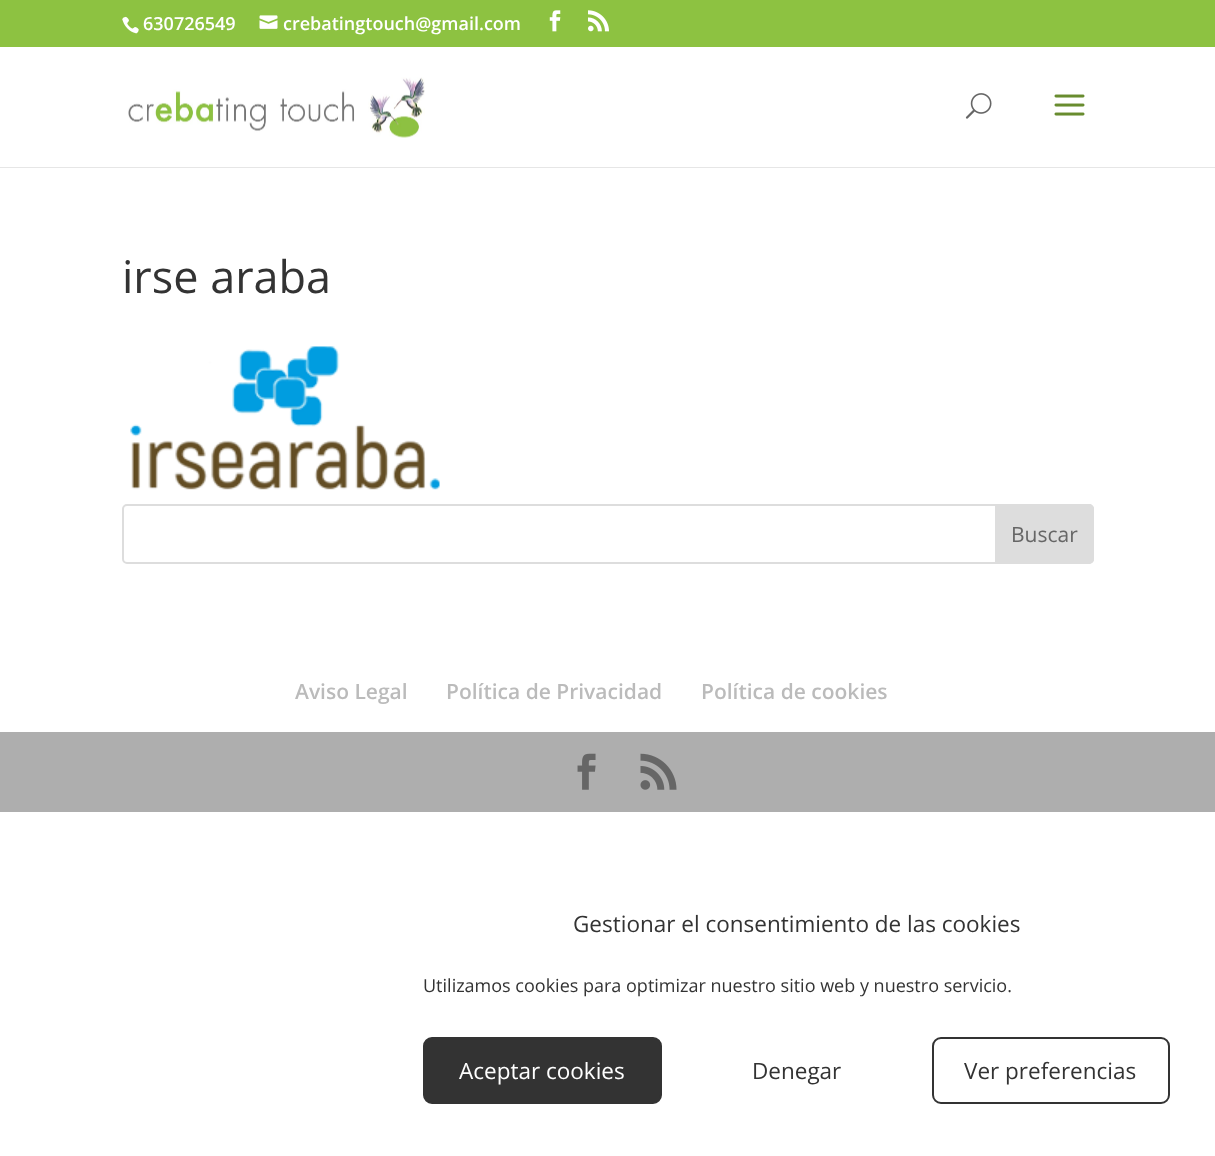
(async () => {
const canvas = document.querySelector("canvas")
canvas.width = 1215
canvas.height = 1156
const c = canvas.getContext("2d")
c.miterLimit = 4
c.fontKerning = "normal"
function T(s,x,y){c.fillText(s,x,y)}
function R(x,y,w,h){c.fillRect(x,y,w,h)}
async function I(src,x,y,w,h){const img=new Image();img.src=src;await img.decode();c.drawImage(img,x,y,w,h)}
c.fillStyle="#fff"
R(0,0,1215,1156)
c.fillStyle="#8dc241"
R(0,0,1215,47)
await I("1.png",122,16,17,18)
c.font="600 18px Open Sans"
c.fillStyle="#fff"
T("630726549",143,30)
await I("2.png",259,15,19,14)
T("crebatingtouch@gmail.com",283,30)
await I("3.png",549,10,12,22)
await I("4.png",588,10,21,22)
c.fillStyle="#e6e6e6"
R(0,167,1215,1)
await I("5.png",128,77,297,61)
await I("6.png",965,93,27,26)
await I("7.png",1054,94,31,22)
c.font="45px Open Sans"
c.fillStyle="#333"
T("irse araba",122,293)
await I("8.png",130,346,310,144)
c.beginPath()
c.roundRect(123,505,970,58,4)
c.strokeStyle="#ddd"
c.lineWidth=2
c.stroke()
c.fillStyle="#ddd"
c.beginPath()
c.roundRect(996,505,97,58,[0,4,4,0])
c.fill()
c.stroke()
c.font="21px Open Sans"
c.fillStyle="#666"
T("Buscar",1011,542)
c.font="600 21px Open Sans"
c.fillStyle="#bbb"
T("Aviso Legal",295,699)
T("Política de Privacidad",446,699)
T("Política de cookies",701,699)
c.fillStyle="#aeaeae"
R(0,732,1215,80)
await I("9.png",577,753,19,37)
await I("10.png",640,753,37,37)
c.font="22.5px Open Sans"
c.fillStyle="#333"
T("Gestionar el consentimiento de las cookies",573,932)
c.font="18px Open Sans"
T("Utilizamos cookies para optimizar nuestro sitio web y nuestro servicio.",423,992)
c.beginPath()
c.roundRect(424,1038,237,65,8)
c.fill()
c.strokeStyle="#333"
c.stroke()
c.font="22.5px Open Sans"
c.fillStyle="#fff"
T("Aceptar cookies",459,1079)
c.fillStyle="#333"
T("Denegar",752,1079)
c.beginPath()
c.roundRect(933,1038,236,65,8)
c.stroke()
T("Ver preferencias",964,1079)
})()
